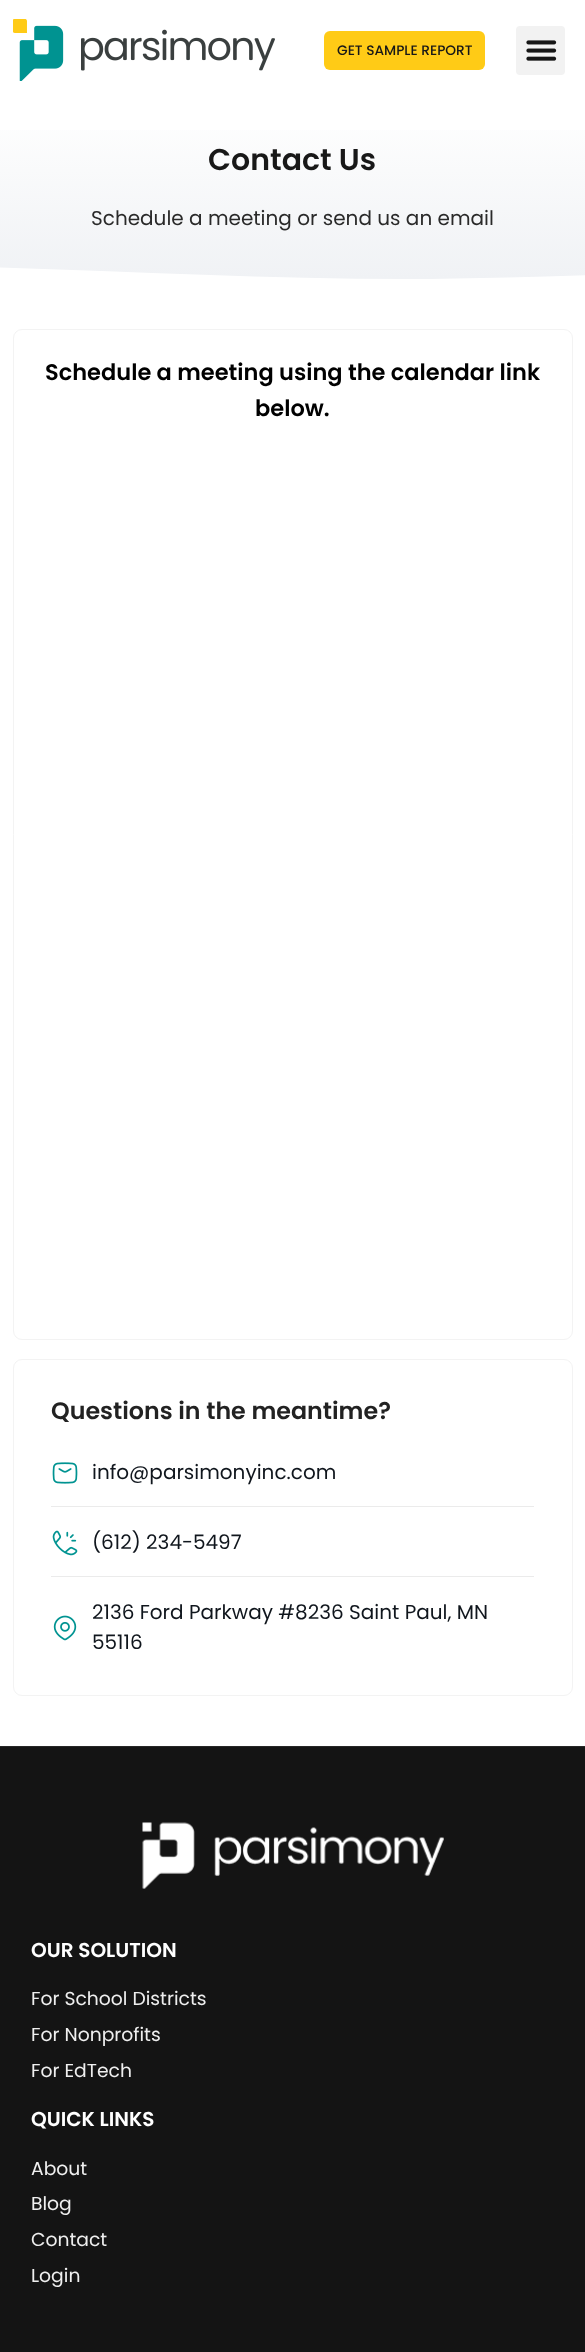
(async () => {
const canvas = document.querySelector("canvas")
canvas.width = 585
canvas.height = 2352
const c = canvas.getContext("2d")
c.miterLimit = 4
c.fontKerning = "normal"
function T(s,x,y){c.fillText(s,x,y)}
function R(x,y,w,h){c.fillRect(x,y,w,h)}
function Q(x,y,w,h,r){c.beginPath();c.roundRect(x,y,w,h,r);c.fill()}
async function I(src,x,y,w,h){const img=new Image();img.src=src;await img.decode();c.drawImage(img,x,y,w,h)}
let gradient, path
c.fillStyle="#fff"
R(0,0,585,2352)
await I("1.png",13,19,262,62)
c.fillStyle="#ffcb16"
Q(324,31,161,39,6)
c.font="500 13.75px Poppins"
c.fillStyle="#181818"
T("GET SAMPLE REPORT",337,55)
c.fillStyle="#f2f2f2"
Q(516,26,49,49,4)
await I("2.png",526,40,31,21)
gradient = c.createLinearGradient(293,100,293,279)
gradient.addColorStop(0,"#fff")
gradient.addColorStop(1,"#f0f2f5")
c.fillStyle = gradient
R(0,130,585,149)
c.font="600 30px Poppins"
c.fillStyle="#181818"
T("Contact Us",208,170)
c.font="20px Poppins"
c.fillStyle="#2a2a2a"
T("Schedule a meeting or send us an email",91,225)
c.fillStyle="#fff"
path = new Path2D("M430 279c-150 1-299-8-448-12c-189-5-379-5-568 1v12h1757v-5c-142-6-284-6-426-4l-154 4c-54 2-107 3-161 4z")
c.fill(path)
c.beginPath()
c.roundRect(13.5,329.5,559,1010,8.5)
c.strokeStyle="#f3f3f3"
c.stroke()
c.font="600 22.5px Poppins"
c.fillStyle="#000"
T("Schedule a meeting using the calendar link",45,380)
T("below.",255,416)
c.beginPath()
c.roundRect(13.5,1359.5,559,336,8.5)
c.stroke()
c.font="600 23.75px Poppins"
c.fillStyle="#222"
T("Questions in the meantime?",51,1419)
await I("3.png",52,1462,26,22)
c.font="20px Poppins"
c.fillStyle="#10161d"
T("info@parsimonyinc.com",92,1479)
c.fillStyle="#ebebeb"
R(51,1506,483,1)
await I("4.png",52,1530,26,26)
c.fillStyle="#10161d"
T("(612) 234-5497",92,1549)
c.fillStyle="#ebebeb"
R(51,1576,483,1)
await I("5.png",53,1615,24,26)
c.fillStyle="#10161d"
T("2136 Ford Parkway #8236 Saint Paul, MN",92,1619)
T("55116",92,1649)
c.fillStyle="#141414"
R(0,1747,585,605)
c.fillStyle="#272727"
R(0,1746,585,1)
await I("6.png",142,1822,302,67)
c.font="600 20px Poppins"
c.fillStyle="#fff"
T("OUR SOLUTION",31,1957)
c.font="18.75px Poppins"
c.fillStyle="#efefef"
T("For School Districts",31,2005)
T("For Nonprofits",31,2041)
T("For EdTech",31,2077)
c.font="600 20px Poppins"
c.fillStyle="#fff"
T("QUICK LINKS",31,2126)
c.font="18.75px Poppins"
c.fillStyle="#efefef"
T("About",31,2175)
T("Blog",31,2210)
T("Contact",31,2246)
T("Login",31,2282)
})()
